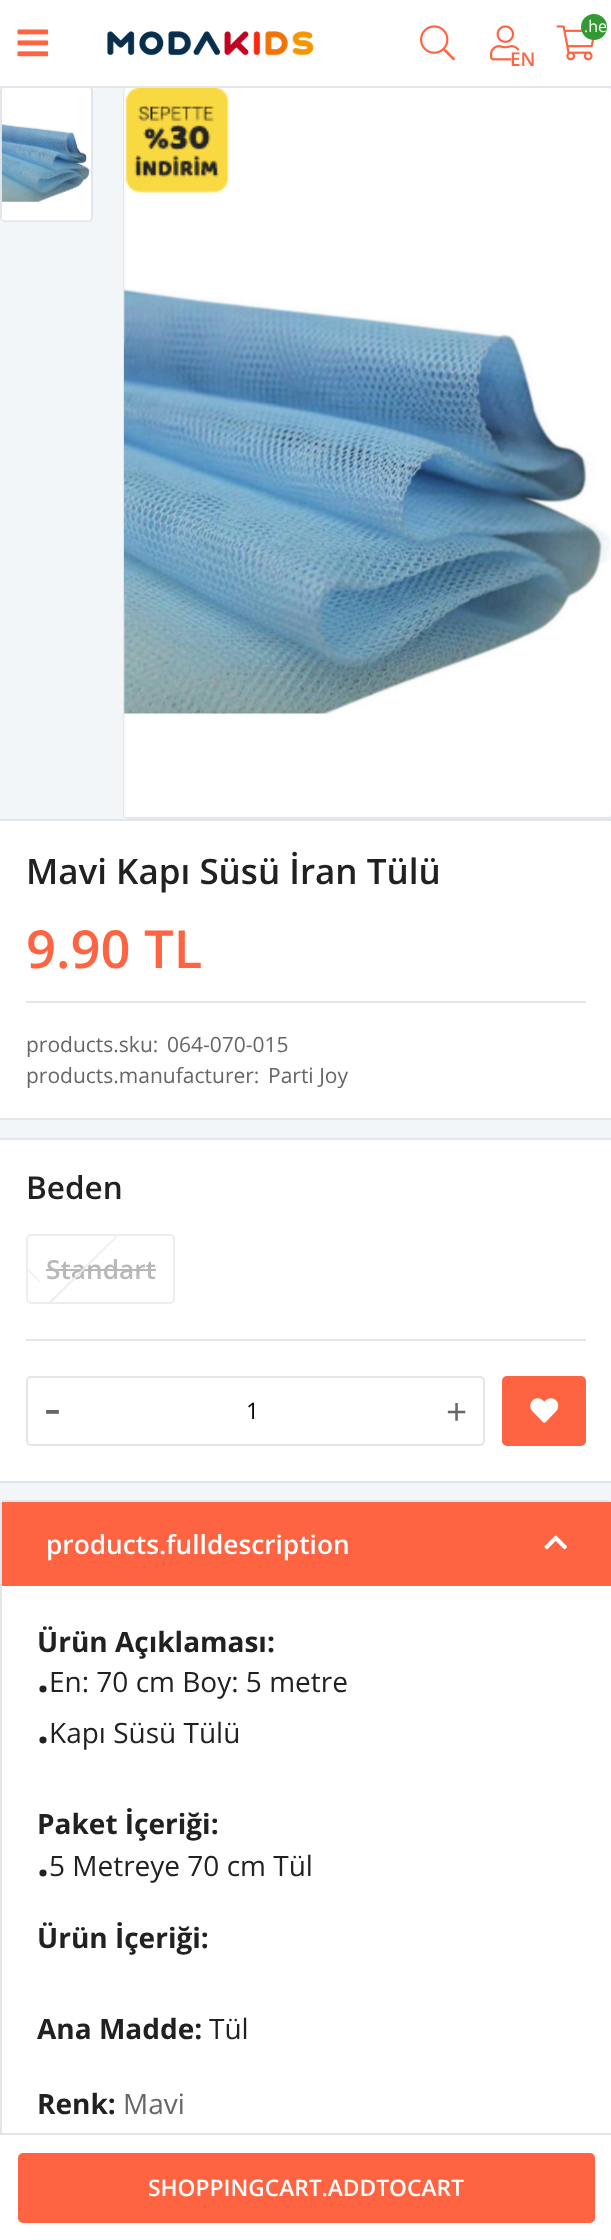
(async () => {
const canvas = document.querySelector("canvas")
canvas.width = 611
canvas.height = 2240
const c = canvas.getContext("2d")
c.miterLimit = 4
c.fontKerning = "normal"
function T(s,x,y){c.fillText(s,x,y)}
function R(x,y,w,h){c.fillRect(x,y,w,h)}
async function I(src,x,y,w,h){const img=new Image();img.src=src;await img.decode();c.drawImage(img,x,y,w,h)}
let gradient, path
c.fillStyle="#f3f6f9"
R(0,0,611,2240)
c.fillStyle="#fff"
R(0,0,611,86)
c.beginPath()
c.roundRect(1,87,91,134,4)
c.strokeStyle="#e2e6eb"
c.lineWidth=2
c.stroke()
c.beginPath()
c.roundRect(124,87,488,731,4)
c.fill()
c.stroke()
c.fillStyle="#e2e6eb"
R(0,86,611,2)
await I("1.png",17,29,32,28)
await I("2.png",107,31,207,25)
await I("3.png",420,25,35,36)
await I("4.png",490,25,30,36)
c.fillStyle="#fff"
c.beginPath()
c.arc(524,62,13,0,7)
c.fill()
c.font="600 19px Open Sans"
c.fillStyle="#ff6442"
T("EN",510,66)
await I("5.png",556,25,39,36)
c.fillStyle="#393"
c.beginPath()
c.arc(594,27,13,0,7)
c.fill()
c.font="16px Open Sans"
c.fillStyle="#fff"
T(".he",584,32)
await I("6.png",1,88,90,133)
await I("7.png",124,88,487,730)
await I("8.png",125,88,105,105)
R(0,821,611,297)
c.fillStyle="#e2e6eb"
R(0,819,611,2)
R(0,1118,611,2)
c.font="600 35px Open Sans"
c.fillStyle="#212121"
T("Mavi Kapı Süsü İran Tülü",26,884)
c.fillStyle="#e2e6eb"
R(26,1001,560,2)
c.font="600 52.5px Open Sans"
c.fillStyle="#ff6442"
T("9.90 TL",26,968)
c.font="21px Open Sans"
c.fillStyle="#666"
T("products.sku:",26,1052)
T("064-070-015",167,1052)
T("products.manufacturer:",26,1083)
T("Parti Joy",268,1083)
c.fillStyle="#fff"
R(0,1140,611,341)
c.fillStyle="#e2e6eb"
R(0,1138,611,2)
R(0,1481,611,2)
R(26,1339,560,2)
c.font="600 31.5px Open Sans"
c.fillStyle="#212121"
T("Beden",26,1199)
c.beginPath()
c.roundRect(27,1235,147,68,4)
c.strokeStyle="#ebeef1"
c.stroke()
c.font="600 26.25px Open Sans"
c.fillStyle="#b8b8b8"
T("Standart",46,1279)
R(46,1269,110,2)
c.fillStyle="#ebeef1"
path = new Path2D("M118 1236l-66 66h-3l67-66z")
c.fill(path)
gradient = c.createLinearGradient(82,1268,84,1271)
gradient.addColorStop(0,"#ebeef100")
gradient.addColorStop(0,"#ebeef1")
gradient.addColorStop(.5,"#ebeef1")
gradient.addColorStop(.5,"#ebeef100")
c.fillStyle = gradient
path = new Path2D("M118 1236l-66 66h-3l67-66z")
c.fill(path)
c.fillStyle="#ebeef1"
path = new Path2D("M28.5 1269c7 7 12 12.5 12 13c-.5 .5-6-4.5-12.5-11.5v-2z")
c.fill(path)
c.beginPath()
c.roundRect(27,1377,457,68,4)
c.strokeStyle="#e2e6eb"
c.stroke()
c.font="52.5px Open Sans"
c.fillStyle="#666"
T("-",44,1426)
c.font="22.75px Open Sans"
c.fillStyle="#000"
T("1",246,1419)
c.font="37px Open Sans"
c.fillStyle="#666"
T("+",446,1425)
c.fillStyle="#ff6442"
c.beginPath()
c.roundRect(503,1377,82,68,4)
c.fill()
c.strokeStyle="#ff6442"
c.stroke()
await I("9.png",530,1398,29,25)
c.fillStyle="#fff"
c.beginPath()
c.roundRect(1,1501,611,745,4)
c.fill()
c.strokeStyle="#e2e6eb"
c.stroke()
R(0,2135,2,105)
c.fillStyle="#e2e6eb"
R(0,2133,611,2)
c.fillStyle="#ff6442"
c.beginPath()
c.roundRect(19,2154,575,68,4)
c.fill()
c.strokeStyle="#ff6442"
c.stroke()
c.font="600 22.75px Open Sans"
c.fillStyle="#fff"
T("SHOPPINGCART.ADDTOCART",148,2196)
c.fillStyle="#ff6442"
R(2,1502,609,84)
c.font="600 26.25px Open Sans"
c.fillStyle="#fff"
T("products.fulldescription",46,1554)
await I("10.png",544,1535,23,15)
c.font="bold 28px Open Sans"
c.fillStyle="#212121"
T("Ürün Açıklaması:",37,1652)
c.font="bold 42px Open Sans"
T(".",37,1692)
c.font="28px Open Sans"
T("En: 70 cm Boy: 5 metre",49,1692)
c.font="bold 42px Open Sans"
T(".",37,1743)
c.font="28px Open Sans"
T("Kapı Süsü Tülü",49,1743)
c.font="bold 28px Open Sans"
T("Paket İçeriği:",37,1834)
c.font="bold 42px Open Sans"
T(".",37,1876)
c.font="28px Open Sans"
T("5 Metreye 70 cm Tül",49,1876)
c.font="bold 28px Open Sans"
T("Ürün İçeriği:",37,1948)
T("Ana Madde:",37,2039)
c.font="28px Open Sans"
T("Tül",209,2039)
c.font="bold 28px Open Sans"
T("Renk:",37,2114)
c.font="28px Open Sans"
c.fillStyle="#666"
T("Mavi",123,2114)
})()
